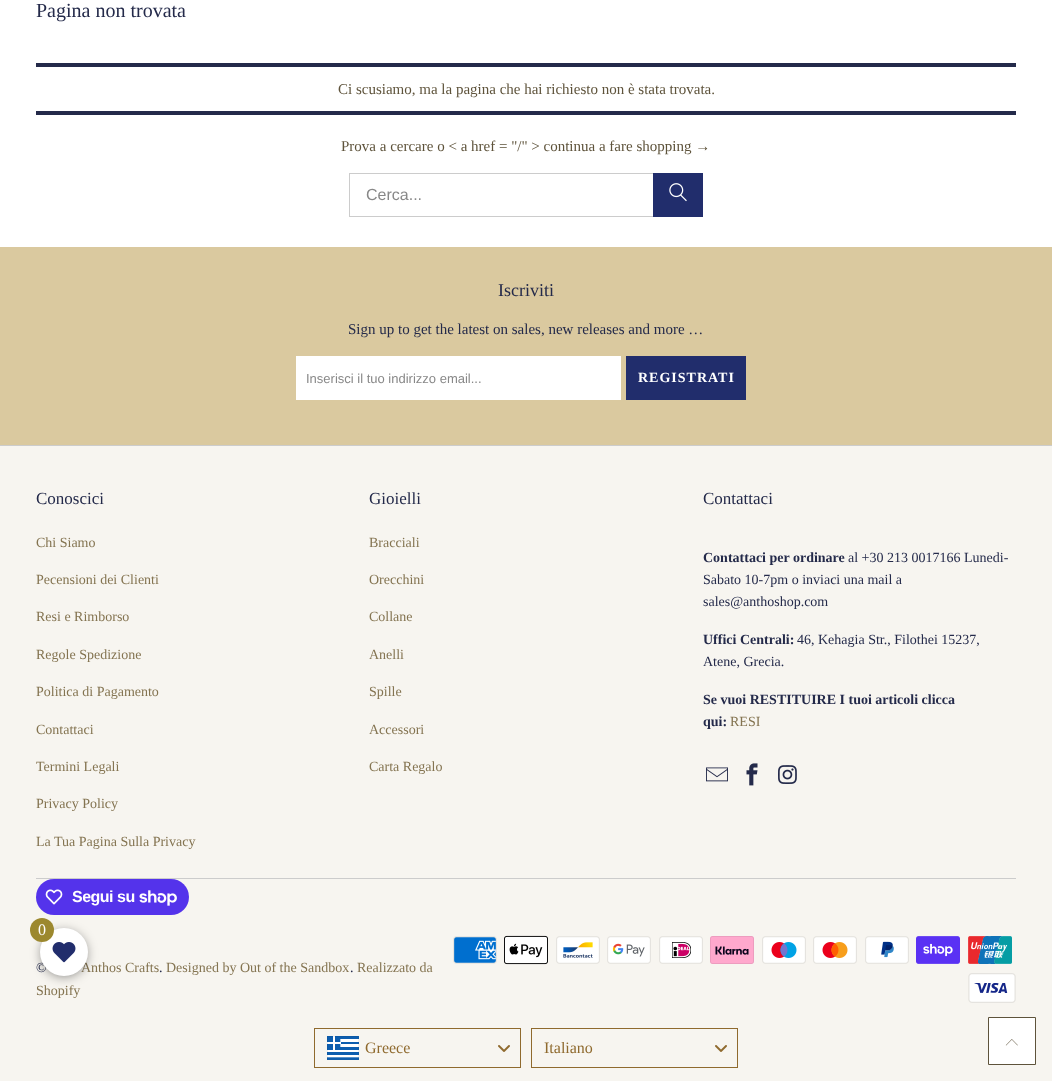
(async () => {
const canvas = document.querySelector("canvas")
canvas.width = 1052
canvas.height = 1081
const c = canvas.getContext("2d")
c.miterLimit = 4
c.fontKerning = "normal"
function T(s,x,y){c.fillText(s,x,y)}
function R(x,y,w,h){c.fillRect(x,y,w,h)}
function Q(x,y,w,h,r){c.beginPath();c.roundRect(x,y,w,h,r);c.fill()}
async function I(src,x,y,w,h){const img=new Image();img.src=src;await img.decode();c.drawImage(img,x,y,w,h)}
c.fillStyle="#fff"
R(0,0,1052,1081)
c.font="20px Liberation Serif"
c.fillStyle="#242a4a"
T("Pagina non trovata",36,17)
R(36,63,980,4)
R(36,111,980,4)
c.font="15px Liberation Serif"
c.fillStyle="#5e533b"
T("Ci scusiamo, ma la pagina che hai richiesto non è stata trovata.",338,94)
T("Prova a cercare o < a href = \"/\" > continua a fare shopping →",341,151)
c.strokeStyle="#ccc"
c.strokeRect(349.5,173.5,353,43)
c.font="16px Liberation Sans"
c.fillStyle="#888"
T("Cerca...",366,200)
c.fillStyle="#212d6c"
R(653,173,50,44)
await I("1.png",669,183,18,19)
c.fillStyle="#dac99f"
R(0,247,1052,198)
c.font="18px Liberation Serif"
c.fillStyle="#242a4a"
T("Iscriviti",498,296)
c.font="15px Liberation Serif"
T("Sign up to get the latest on sales, new releases and more …",348,334)
c.fillStyle="#fff"
R(296,356,325,44)
c.font="13px Liberation Sans"
c.fillStyle="#888"
T("Inserisci il tuo indirizzo email...",306,383)
c.fillStyle="#212d6c"
R(626,356,120,44)
c.letterSpacing="1px"
c.font="bold 14px Liberation Serif"
c.fillStyle="#fff"
T("REGISTRATI",638,382)
c.fillStyle="#f7f5f0"
R(0,446,1052,635)
c.fillStyle="#ccc"
R(0,445,1052,1)
c.letterSpacing="0px"
c.font="17px Liberation Serif"
c.fillStyle="#242a4a"
T("Conoscici",36,504)
c.font="14px Liberation Serif"
c.fillStyle="#847451"
T("Chi Siamo",36,547)
T("Ρecensioni dei Clienti",36,584)
T("Resi e Rimborso",36,621)
T("Regole Spedizione",36,659)
T("Politica di Pagamento",36,696)
T("Contattaci",36,734)
T("Termini Legali",36,771)
T("Privacy Policy",36,808)
T("La Tua Pagina Sulla Privacy",36,846)
c.font="17px Liberation Serif"
c.fillStyle="#242a4a"
T("Gioielli",369,504)
c.font="14px Liberation Serif"
c.fillStyle="#847451"
T("Bracciali",369,547)
T("Orecchini",369,584)
T("Collane",369,621)
T("Anelli",369,659)
T("Spille",369,696)
T("Accessori",369,734)
T("Carta Regalo",369,771)
c.font="17px Liberation Serif"
c.fillStyle="#242a4a"
T("Contattaci",703,504)
c.font="bold 14px Liberation Serif"
T("Contattaci per ordinare",703,562)
c.font="14px Liberation Serif"
T("al +30 213 0017166 Lunedi-",848,562)
T("Sabato 10-7pm o inviaci una mail a",703,584)
T("sales@anthoshop.com",703,606)
c.font="bold 14px Liberation Serif"
T("Uffici Centrali:",703,644)
c.font="14px Liberation Serif"
T("46, Kehagia Str., Filothei 15237,",797,644)
T("Atene, Grecia.",703,666)
c.font="bold 14px Liberation Serif"
T("Se vuoi RESTITUIRE I tuoi articoli clicca",703,704)
T("qui:",703,726)
c.font="14px Liberation Serif"
c.fillStyle="#847451"
T("RESI",730,726)
await I("2.png",706,767,22,15)
await I("3.png",746,763,12,23)
await I("4.png",778,765,19,19)
c.fillStyle="#ccc"
R(36,878,980,1)
c.fillStyle="#5433eb"
Q(36,879,153,36,18)
await I("5.png",45,889,18,16)
c.letterSpacing="-0.5px"
c.font="bold 16px Liberation Sans"
c.fillStyle="#fff"
T("Segui su",72,902)
await I("6.png",139,890,38,16)
c.letterSpacing="0px"
c.font="14px Liberation Serif"
c.fillStyle="#242a4a"
T("©",36,972)
c.fillStyle="#847451"
T("Anthos Crafts",81,972)
c.fillStyle="#242a4a"
T(".",159,972)
c.fillStyle="#847451"
T("Designed by Out of the Sandbox",166,972)
c.fillStyle="#242a4a"
T(".",350,972)
c.fillStyle="#847451"
T("Realizzato da",357,972)
T("Shopify",36,995)
await I("7.png",453,936,44,28)
await I("8.png",504,935,44,30)
await I("9.png",556,936,44,28)
await I("10.png",607,936,44,28)
await I("11.png",659,936,44,28)
await I("12.png",710,936,44,28)
await I("13.png",762,936,44,28)
await I("14.png",813,936,44,28)
await I("15.png",865,936,44,28)
await I("16.png",916,936,44,28)
await I("17.png",968,936,44,28)
await I("18.png",968,973,48,30)
await I("19.png",498,1045,12,7)
c.strokeStyle="#8f6a2e"
c.strokeRect(314.5,1028.5,206,39)
await I("20.png",327,1036,32,24)
c.strokeStyle="#0000000d"
c.strokeRect(327.5,1036.5,31,23)
c.font="16px Liberation Serif"
c.fillStyle="#8f6a2e"
T("Greece",365,1053)
await I("19.png",715,1045,12,7)
c.strokeStyle="#8f6a2e"
c.strokeRect(531.5,1028.5,206,39)
T("Italiano",544,1053)
c.fillStyle="#00000080"
c.filter="blur(6px)"
c.beginPath()
c.roundRect(42,932,44,44,22)
c.fill()
c.filter="none"
c.fillStyle="#fff"
c.beginPath()
c.arc(64,952,24,0,7)
c.fill()
c.fillStyle="#9c882e"
c.beginPath()
c.arc(42,930,12,0,7)
c.fill()
c.fillStyle="#fff"
T("0",38,935)
await I("21.png",52,942,24,21)
c.beginPath()
c.rect(988.5,1017.5,47,47)
c.fill()
c.strokeStyle="#5e533b"
c.stroke()
await I("22.png",1005,1039,13,7)
})()
